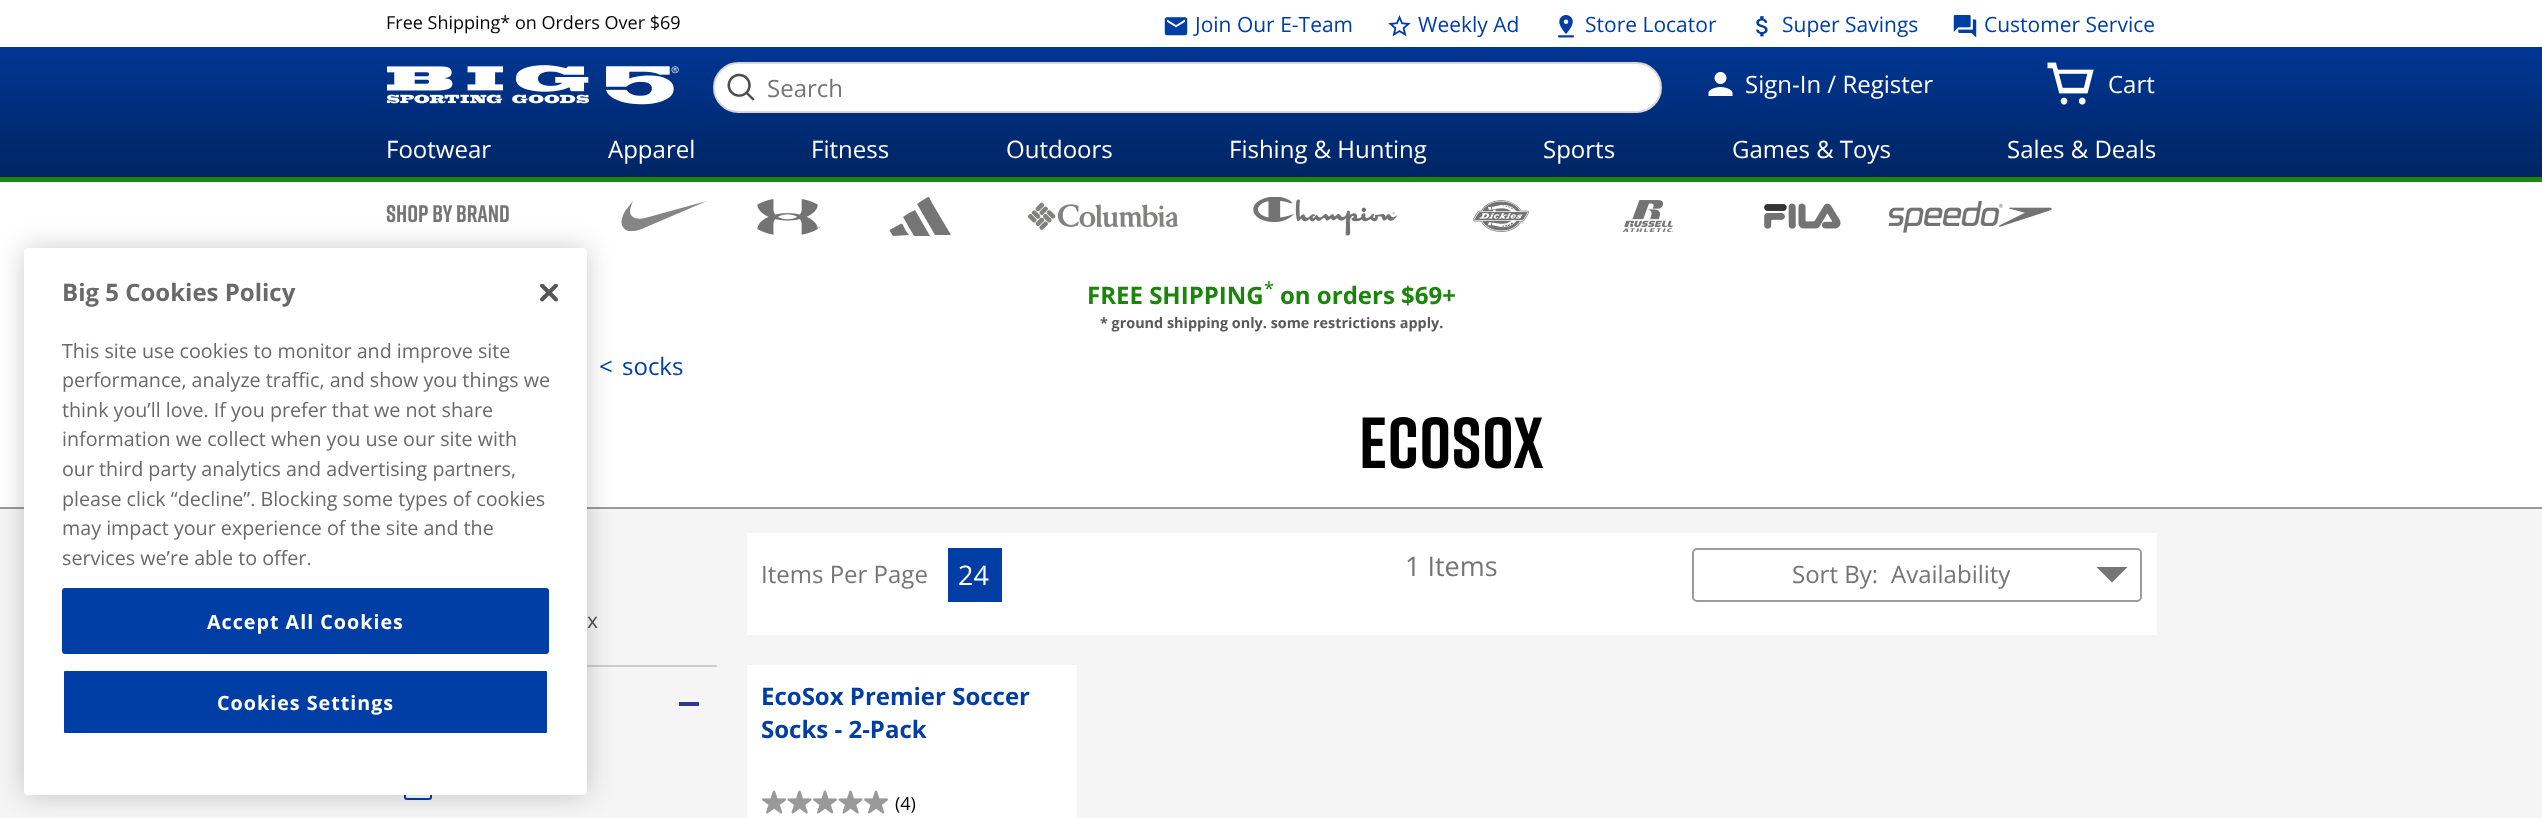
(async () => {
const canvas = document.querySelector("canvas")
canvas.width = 2542
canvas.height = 818
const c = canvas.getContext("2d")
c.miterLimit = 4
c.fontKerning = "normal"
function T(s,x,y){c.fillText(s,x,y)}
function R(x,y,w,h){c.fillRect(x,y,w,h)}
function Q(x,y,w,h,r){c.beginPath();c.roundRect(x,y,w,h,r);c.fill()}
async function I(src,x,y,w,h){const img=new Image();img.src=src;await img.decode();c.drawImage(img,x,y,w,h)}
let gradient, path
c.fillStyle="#fff"
R(0,0,2542,818)
c.save()
c.beginPath()
c.rect(605,201,118,30)
c.clip()
c.fillStyle="#868484"
path = new Path2D("M644 228c-7 3-17 6-21-1c-3-4-1-10 2-16c3-3 5-7 8-10c-1 3-6 12 0 16c3 2 7 2 12 1l62-17z")
c.fill(path)
c.restore()
c.fillStyle="#f5f5f5"
R(0,509,2542,309)
c.fillStyle="#9b9b9b"
R(0,507,2542,2)
c.fillStyle="#ccc"
R(587,665,130,2)
c.fillStyle="#fff"
c.beginPath()
c.roundRect(405,772,26,27,2)
c.fill()
c.strokeStyle="#003da5"
c.lineWidth=2
c.stroke()
c.fillStyle="#00000033"
c.filter="blur(13.5px)"
c.beginPath()
c.roundRect(24,248,563,547,4)
c.fill()
c.filter="none"
c.fillStyle="#fff"
Q(24,248,563,547,4)
c.font="bold 24px Open Sans"
c.fillStyle="#696969"
T("Big 5 Cookies Policy",62,301)
c.font="19.7px Open Sans"
T("This site use cookies to monitor and improve site",62,358)
T("performance, analyze traffic, and show you things we",62,387)
T("think you’ll love. If you prefer that we not share",62,417)
T("information we collect when you use our site with",62,446)
T("our third party analytics and advertising partners,",62,476)
T("please click “decline”. Blocking some types of cookies",62,506)
T("may impact your experience of the site and the",62,535)
T("services we’re able to offer.",62,565)
await I("1.png",540,284,18,18)
c.fillStyle="#003da5"
c.beginPath()
c.roundRect(63,589,485,64,2)
c.fill()
c.stroke()
c.letterSpacing="1px"
c.font="bold 19.7px Open Sans"
c.fillStyle="#fff"
T("Accept All Cookies",207,629)
c.fillStyle="#003da5"
c.beginPath()
c.roundRect(63,670,485,64,2)
c.fill()
c.strokeStyle="#fff"
c.stroke()
c.fillStyle="#fff"
T("Cookies Settings",217,710)
gradient = c.createLinearGradient(1271,0,1271,177)
gradient.addColorStop(0,"#003da5")
gradient.addColorStop(1,"#002563")
c.fillStyle = gradient
R(0,47,2542,130)
c.fillStyle="#1d870d"
R(0,177,2542,5)
c.letterSpacing="0px"
c.font="18px Open Sans"
c.fillStyle="#000"
T("Free Shipping* on Orders Over $69",386,29)
await I("2.png",1164,17,24,19)
c.font="21px Open Sans"
c.fillStyle="#003da5"
T("Join Our E-Team",1195,32)
await I("3.png",1388,15,23,22)
T("Weekly Ad",1418,32)
await I("4.png",1558,15,16,23)
T("Store Locator",1585,32)
await I("5.png",1756,16,12,21)
T("Super Savings",1782,32)
await I("6.png",1953,15,24,23)
T("Customer Service",1984,32)
await I("7.png",387,65,292,40)
c.fillStyle="#fff"
c.beginPath()
c.roundRect(714,63,947,49,24.5)
c.fill()
c.strokeStyle="#d7d7d7"
c.stroke()
await I("8.png",727,73,28,28)
c.font="24px Open Sans"
c.fillStyle="#757575"
T("Search",767,97)
await I("9.png",1708,72,25,24)
c.fillStyle="#fff"
T("Sign-In / Register",1745,93)
await I("10.png",2047,62,47,43)
T("Cart",2108,93)
T("Footwear",386,158)
T("Apparel",608,158)
T("Fitness",811,158)
T("Outdoors",1006,158)
T("Fishing & Hunting",1229,158)
T("Sports",1543,158)
T("Games & Toys",1732,158)
T("Sales & Deals",2007,158)
c.font="bold 24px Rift"
c.fillStyle="#757575"
T("Shop by Brand",386,222)
await I("11.png",757,199,63,36)
path = new Path2D("M923 200l-6 4l18 31h16l-19-32c-4-8-2-7-9-3m-14 13l-6 4l11 19h16l-15-26l-6 3m-14 14c-7 4-6 2-2 9l16-1l-3-4c-5-9-2-9-11-4")
c.fill(path,"evenodd")
await I("12.png",1028,202,150,28)
await I("13.png",1253,197,144,39)
await I("14.png",1473,200,56,32)
await I("15.png",1622,200,52,32)
await I("16.png",1764,203,77,26)
await I("17.png",1888,201,164,32)
c.font="bold 24px Open Sans"
c.fillStyle="#1a850a"
T("FREE SHIPPING",1087,304)
c.font="500 18px Open Sans"
T("*",1264,295)
c.font="bold 24px Open Sans"
T("on orders $69+",1280,304)
c.font="bold 14.4px Open Sans"
c.fillStyle="#595959"
T("* ground shipping only. some restrictions apply.",1100,328)
c.font="24px Open Sans"
c.fillStyle="#003da5"
T("<",599,375)
T("socks",622,375)
c.font="bold 72px Rift"
c.fillStyle="#000"
T("ECOSOX",1359,468)
c.font="21px Open Sans"
c.fillStyle="#4d4d4d"
T("x",587,628)
c.fillStyle="#323a8f"
R(679,702,20,4)
c.fillStyle="#fff"
R(747,533,1410,102)
c.font="24px Open Sans"
c.fillStyle="#757575"
T("Items Per Page",761,583)
c.fillStyle="#003da5"
R(948,548,54,54)
c.font="27px Open Sans"
c.fillStyle="#fff"
T("24",958,585)
c.fillStyle="#757575"
T("1 Items",1405,576)
c.beginPath()
c.roundRect(1693,549,448,52,4)
c.strokeStyle="#9b9b9b"
c.stroke()
c.font="24px Open Sans"
T("Sort By:",1792,583)
T("Availability",1891,583)
path = new Path2D("M2096.5 567h31l-15.5 15.5z")
c.fill(path)
c.fillStyle="#fff"
R(747,665,330,153)
c.font="bold 24px Open Sans"
c.fillStyle="#003da5"
T("EcoSox Premier Soccer",761,705)
T("Socks - 2-Pack",761,738)
await I("18.png",762,790,24,24)
await I("19.png",787,790,25,24)
await I("18.png",813,790,24,24)
await I("19.png",838,790,25,24)
await I("18.png",864,790,24,24)
c.font="18px Open Sans"
c.fillStyle="#000"
T("(4)",895,810)
})()
